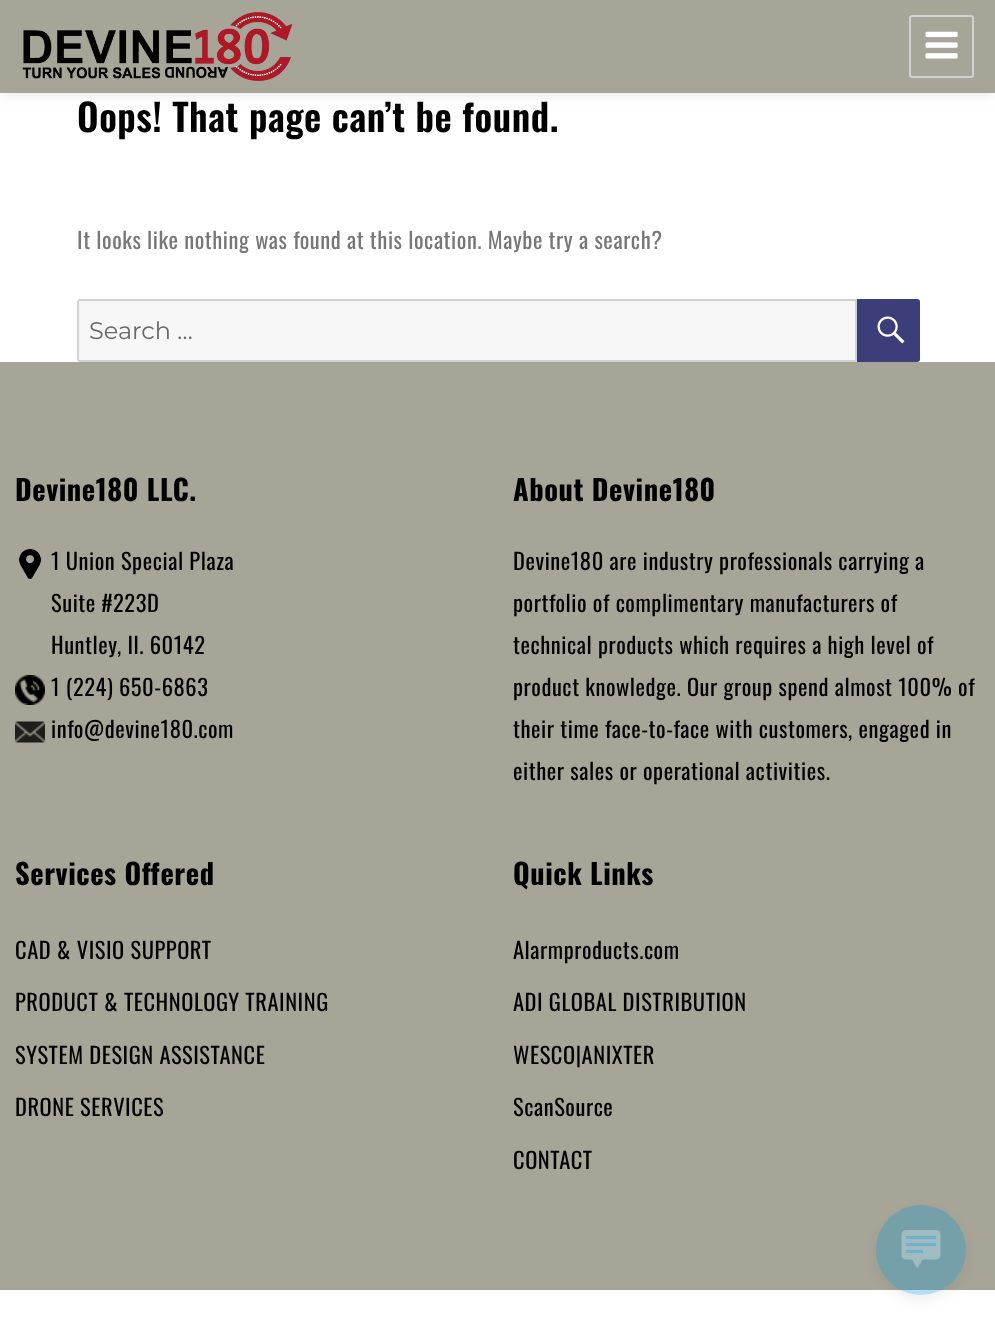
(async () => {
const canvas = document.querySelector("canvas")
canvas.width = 995
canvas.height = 1324
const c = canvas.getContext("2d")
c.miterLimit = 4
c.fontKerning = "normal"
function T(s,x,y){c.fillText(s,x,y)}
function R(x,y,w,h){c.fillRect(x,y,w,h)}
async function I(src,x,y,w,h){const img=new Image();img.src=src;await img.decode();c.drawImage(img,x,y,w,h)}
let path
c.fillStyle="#fff"
R(0,0,995,1324)
c.fillStyle="#0000001a"
c.filter="blur(7.5px)"
c.beginPath()
c.rect(0,0,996,93)
c.fill()
c.filter="none"
c.fillStyle="#a7a597"
R(0,0,995,93)
await I("1.png",22,12,271,69)
c.beginPath()
c.roundRect(910,16,63,61,2)
c.strokeStyle="#d1d1d1"
c.lineWidth=2
c.stroke()
await I("2.png",925,31,33,28)
c.letterSpacing="0.55px"
c.font="600 37.5px Oswald"
c.fillStyle="#000"
T("Oops! That page can’t be found.",77,132)
c.font="22.5px Oswald"
c.fillStyle="#777"
T("It looks like nothing was found at this location. Maybe try a search?",77,249)
c.fillStyle="#f7f7f7"
c.beginPath()
c.roundRect(78,300,778,61,[2,0,0,2])
c.fill()
c.stroke()
c.letterSpacing="0px"
c.font="24px Montserrat"
c.fillStyle="#686868"
T("Search …",89,339)
c.fillStyle="#3b3e79"
c.beginPath()
c.roundRect(857,299,63,63,[0,3,3,0])
c.fill()
await I("3.png",877,316,28,28)
c.fillStyle="#a7a597"
R(0,362,995,928)
c.letterSpacing="0.55px"
c.font="bold 28.5px Oswald"
c.fillStyle="#000"
T("Devine180 LLC.",15,501)
await I("4.png",19,549,22,30)
c.font="22.5px Oswald"
T("1 Union Special Plaza",51,570)
T("Suite #223D",51,612)
T("Huntley, Il. 60142",51,654)
await I("5.png",15,675,30,30)
T("1 (224) 650-6863",51,696)
await I("6.png",15,721,30,22)
T("info@devine180.com",51,738)
c.font="bold 28.5px Oswald"
T("About Devine180",513,501)
c.font="22.5px Oswald"
T("Devine180 are industry professionals carrying a",513,570)
T("portfolio of complimentary manufacturers of",513,612)
T("technical products which requires a high level of",513,654)
T("product knowledge. Our group spend almost 100% of",513,696)
T("their time face-to-face with customers, engaged in",513,738)
T("either sales or operational activities.",513,780)
c.font="bold 28.5px Oswald"
T("Services Offered",15,885)
c.font="22.5px Oswald"
T("CAD & VISIO SUPPORT",15,959)
T("PRODUCT & TECHNOLOGY TRAINING",15,1011)
T("SYSTEM DESIGN ASSISTANCE",15,1064)
T("DRONE SERVICES",15,1116)
c.font="bold 28.5px Oswald"
T("Quick Links",513,885)
c.font="22.5px Oswald"
T("Alarmproducts.com",513,959)
T("ADI GLOBAL DISTRIBUTION",513,1011)
T("WESCO|ANIXTER",513,1064)
T("ScanSource",513,1116)
T("CONTACT",513,1169)
c.save()
path = new Path2D("M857 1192h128v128h-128zm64 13c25 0 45 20 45 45c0 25-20 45-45 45c-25 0-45-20-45-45c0-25 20-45 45-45z")
c.clip(path,"evenodd")
c.fillStyle="#0000000f"
c.filter="blur(6px)"
c.beginPath()
c.roundRect(876,1211,90,90,45)
c.fill()
c.filter="none"
c.restore()
c.fillStyle="#0596d44d"
c.beginPath()
c.arc(921,1250,45,0,7)
c.fill()
await I("7.png",901,1230,40,38)
})()
